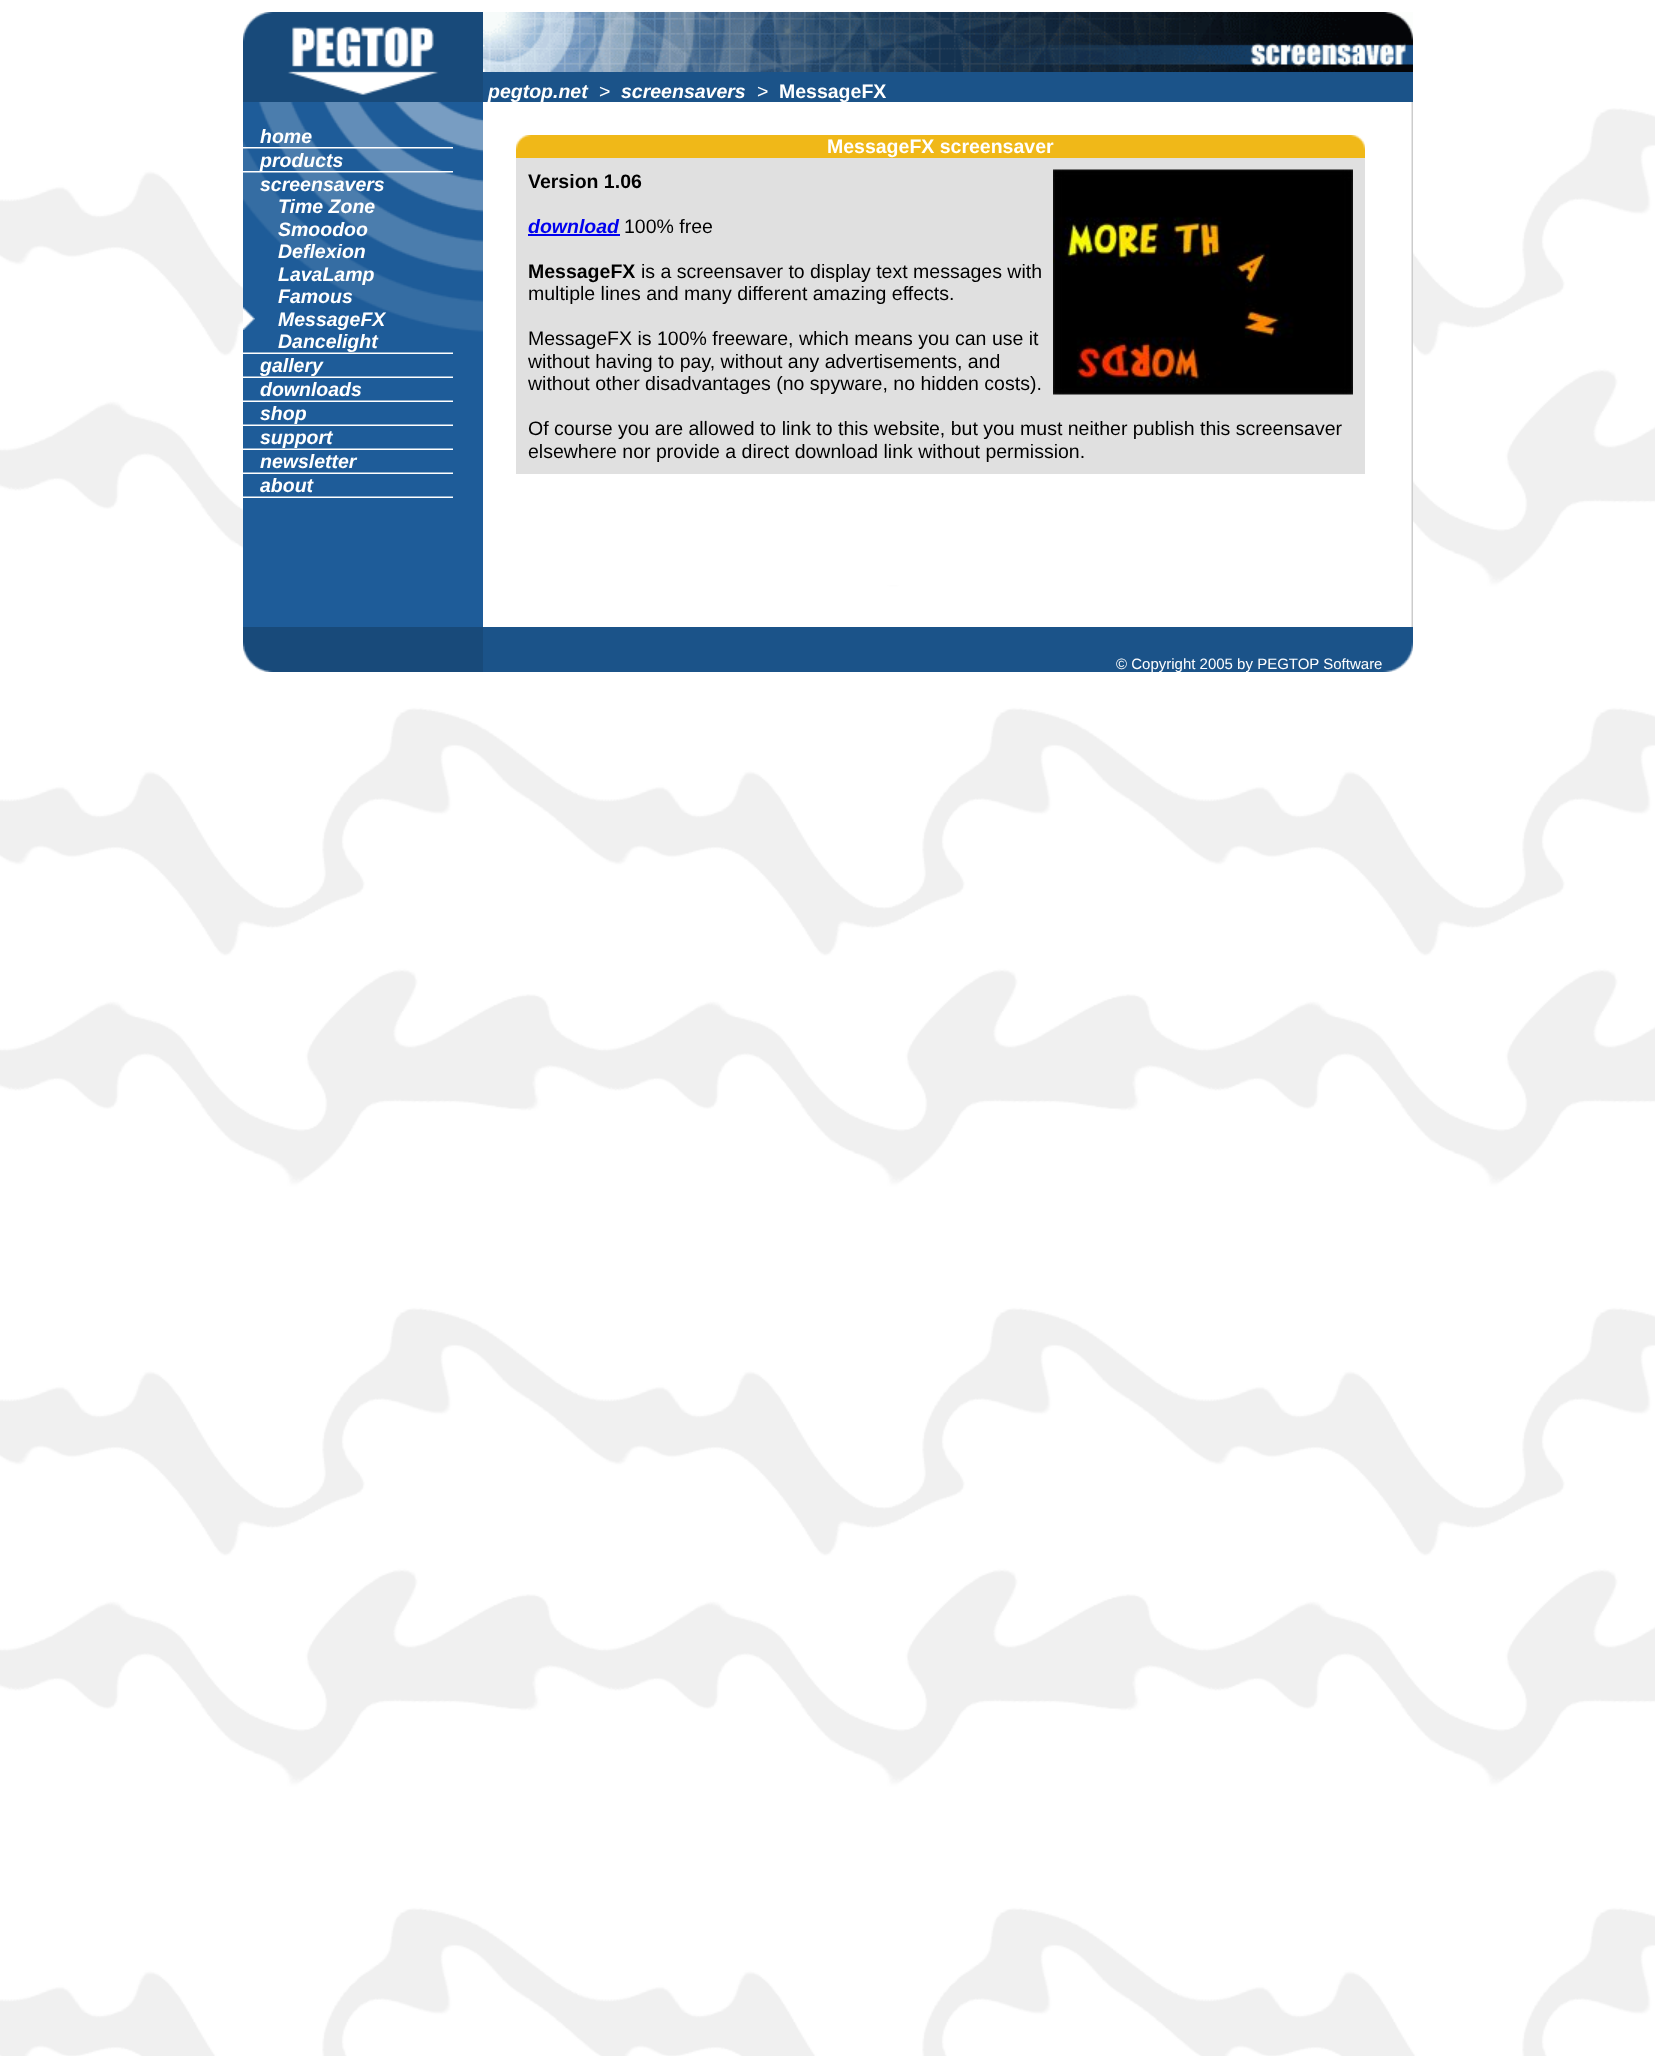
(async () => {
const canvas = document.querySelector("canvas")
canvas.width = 1655
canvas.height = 2056
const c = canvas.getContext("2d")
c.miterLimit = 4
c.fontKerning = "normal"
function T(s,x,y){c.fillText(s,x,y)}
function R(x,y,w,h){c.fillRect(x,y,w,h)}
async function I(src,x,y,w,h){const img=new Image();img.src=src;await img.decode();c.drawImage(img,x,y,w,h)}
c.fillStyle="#fff"
R(0,0,1655,2056)
await I("1.png",0,108,1655,1948)
await I("2.png",243,12,240,90)
c.fillStyle="#1b5389"
R(483,72,930,30)
await I("3.png",483,12,480,60)
await I("4.png",963,12,450,60)
c.font="italic bold 19.5px Liberation Sans"
c.fillStyle="#fff"
T("pegtop.net",488,98)
c.font="19.5px Liberation Sans"
T(">",599,98)
c.font="italic bold 19.5px Liberation Sans"
T("screensavers",621,98)
c.font="19.5px Liberation Sans"
T(">",757,98)
c.font="bold 19.5px Liberation Sans"
T("MessageFX",779,98)
c.fillStyle="#1e5c99"
R(243,332,240,295)
await I("5.png",243,102,240,230)
c.font="italic bold 19.5px Liberation Sans"
c.fillStyle="#fff"
T("home",260,143)
await I("6.png",243,147,210,2)
T("products",260,167)
await I("7.png",243,171,210,2)
T("screensavers",260,191)
T("Time Zone",278,213)
T("Smoodoo",278,236)
T("Deflexion",278,258)
T("LavaLamp",278,281)
T("Famous",278,303)
await I("8.png",243,307,12,23)
T("MessageFX",278,326)
T("Dancelight",278,348)
await I("9.png",243,352,210,2)
T("gallery",260,372)
await I("10.png",243,376,210,2)
T("downloads",260,396)
await I("11.png",243,400,210,2)
T("shop",260,420)
await I("12.png",243,424,210,2)
T("support",260,444)
await I("13.png",243,448,210,2)
T("newsletter",260,468)
await I("11.png",243,472,210,2)
T("about",260,492)
await I("11.png",243,496,210,2)
R(483,108,928,477)
c.fillStyle="#e0e0e0"
R(516,158,849,316)
c.fillStyle="#f0b818"
R(516,135,849,23)
await I("14.png",516,135,15,15)
c.font="bold 19.5px Liberation Sans"
c.fillStyle="#fff"
T("MessageFX screensaver",827,153)
await I("15.png",1350,135,15,15)
c.fillStyle="#000"
T("Version 1.06",528,188)
await I("16.png",1053,169,300,226)
c.font="italic bold 19.5px Liberation Sans"
c.fillStyle="#00e"
T("download",528,233)
R(528,234,92,2)
c.font="19.5px Liberation Sans"
c.fillStyle="#000"
T("100% free",624,233)
c.font="bold 19.5px Liberation Sans"
T("MessageFX",528,278)
c.font="19.5px Liberation Sans"
T("is a screensaver to display text messages with",641,278)
T("multiple lines and many different amazing effects.",528,300)
T("MessageFX is 100% freeware, which means you can use it",528,345)
T("without having to pay, without any advertisements, and",528,368)
T("without other disadvantages (no spyware, no hidden costs).",528,390)
T("Of course you are allowed to link to this website, but you must neither publish this screensaver",528,435)
T("elsewhere nor provide a direct download link without permission.",528,458)
await I("17.png",1411,102,2,525)
c.fillStyle="#184a7a"
R(243,627,240,45)
await I("18.png",243,642,30,30)
c.fillStyle="#1b5389"
R(483,627,930,45)
c.font="15px Liberation Sans"
c.fillStyle="#fff"
T("© Copyright 2005 by PEGTOP Software",1116,669)
await I("19.png",1383,642,30,30)
})()
